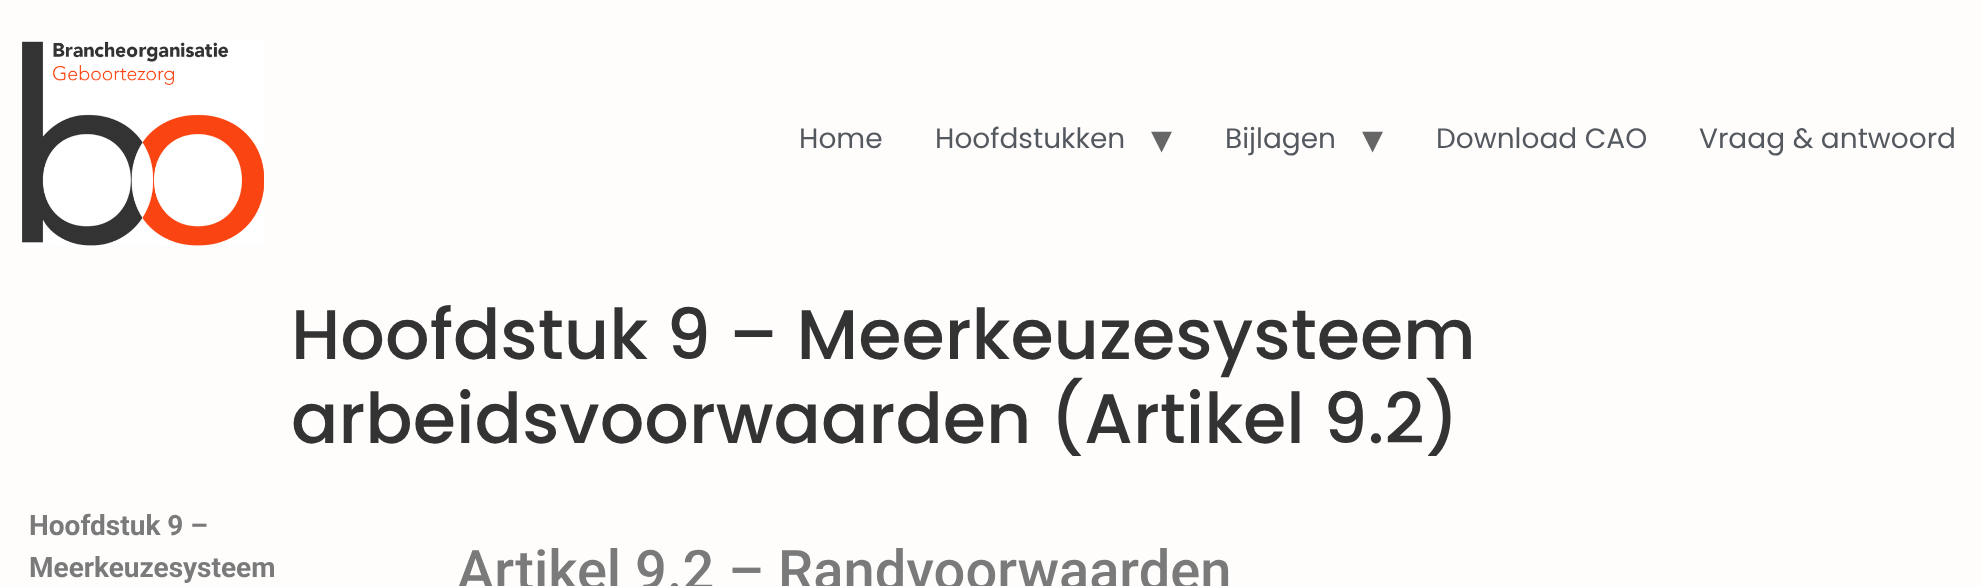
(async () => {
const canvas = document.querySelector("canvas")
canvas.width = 1982
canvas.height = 586
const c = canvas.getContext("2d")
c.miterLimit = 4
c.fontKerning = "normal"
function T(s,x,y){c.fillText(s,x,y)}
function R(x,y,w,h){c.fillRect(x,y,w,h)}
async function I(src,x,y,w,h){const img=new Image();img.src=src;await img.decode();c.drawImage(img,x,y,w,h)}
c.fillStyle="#fffcfc"
R(0,0,1982,586)
await I("1.png",22,41,242,205)
c.font="28px Poppins"
c.fillStyle="#54595f"
T("Home",799,148)
T("Hoofdstukken",935,148)
c.font="42px DejaVu Sans"
c.fillStyle="#666"
T("▾",1151,153)
c.font="28px Poppins"
c.fillStyle="#54595f"
T("Bijlagen",1225,148)
c.font="42px DejaVu Sans"
c.fillStyle="#666"
T("▾",1362,153)
c.font="28px Poppins"
c.fillStyle="#54595f"
T("Download CAO",1436,148)
T("Vraag & antwoord",1699,148)
c.font="500 70px Poppins"
c.fillStyle="#333"
T("Hoofdstuk 9 – Meerkeuzesysteem",291,359)
T("arbeidsvoorwaarden (Artikel 9.2)",291,443)
c.font="bold 28px Roboto"
c.fillStyle="#7a7a7a"
T("Hoofdstuk 9 –",29,535)
T("Meerkeuzesysteem",29,577)
c.font="500 56px Roboto"
T("Artikel 9.2 – Randvoorwaarden",457,590)
})()
